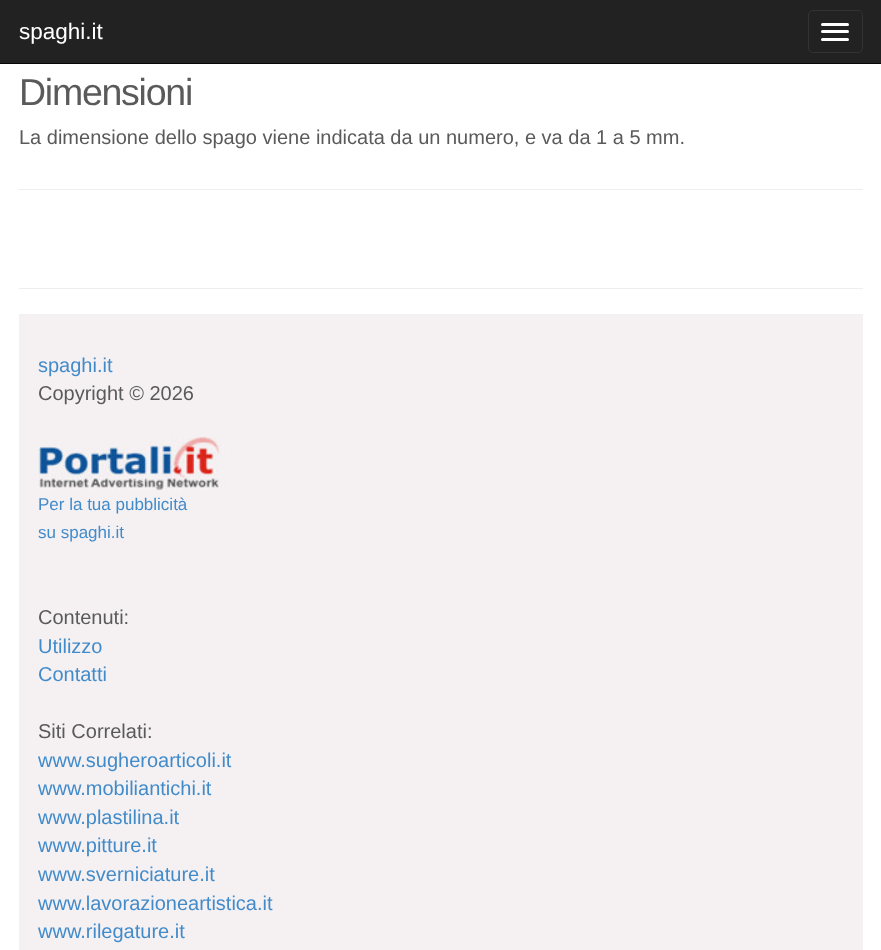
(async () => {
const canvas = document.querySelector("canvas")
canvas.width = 881
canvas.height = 950
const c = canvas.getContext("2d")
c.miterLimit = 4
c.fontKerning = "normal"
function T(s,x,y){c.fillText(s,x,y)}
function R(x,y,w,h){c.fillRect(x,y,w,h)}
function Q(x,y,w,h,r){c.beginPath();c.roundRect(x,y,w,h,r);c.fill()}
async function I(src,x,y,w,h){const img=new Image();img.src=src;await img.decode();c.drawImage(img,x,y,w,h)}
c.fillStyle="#fff"
R(0,0,881,950)
c.fillStyle="#222"
R(0,0,881,63)
c.fillStyle="#080808"
R(0,63,881,1)
c.font="22.5px Liberation Sans"
c.fillStyle="#fff"
T("spaghi.it",19,39)
c.beginPath()
c.roundRect(808.5,10.5,54,42,4.5)
c.strokeStyle="#333"
c.stroke()
Q(821,23,28,3,1.5)
Q(821,30,28,3,1.5)
Q(821,38,28,3,1.5)
c.letterSpacing="-1.25px"
c.font="37.5px Liberation Sans"
c.fillStyle="#5a5a5a"
T("Dimensioni",19,105)
c.letterSpacing="0px"
c.font="20px Liberation Sans"
T("La dimensione dello spago viene indicata da un numero, e va da 1 a 5 mm.",19,144)
c.fillStyle="#eee"
R(19,189,844,1)
R(19,288,844,1)
c.fillStyle="#f5f1f3"
R(19,314,844,636)
c.fillStyle="#428bca"
T("spaghi.it",38,372)
c.fillStyle="#5a5a5a"
T("Copyright © 2026",38,400)
await I("1.png",37,437,189,53)
c.font="17px Liberation Sans"
c.fillStyle="#428bca"
T("Per la tua pubblicità",38,510)
T("su spaghi.it",38,538)
c.font="20px Liberation Sans"
c.fillStyle="#5a5a5a"
T("Contenuti:",38,624)
c.fillStyle="#428bca"
T("Utilizzo",38,653)
T("Contatti",38,681)
c.fillStyle="#5a5a5a"
T("Siti Correlati:",38,738)
c.fillStyle="#428bca"
T("www.sugheroarticoli.it",38,767)
T("www.mobiliantichi.it",38,795)
T("www.plastilina.it",38,824)
T("www.pitture.it",38,852)
T("www.sverniciature.it",38,881)
T("www.lavorazioneartistica.it",38,910)
T("www.rilegature.it",38,938)
})()
